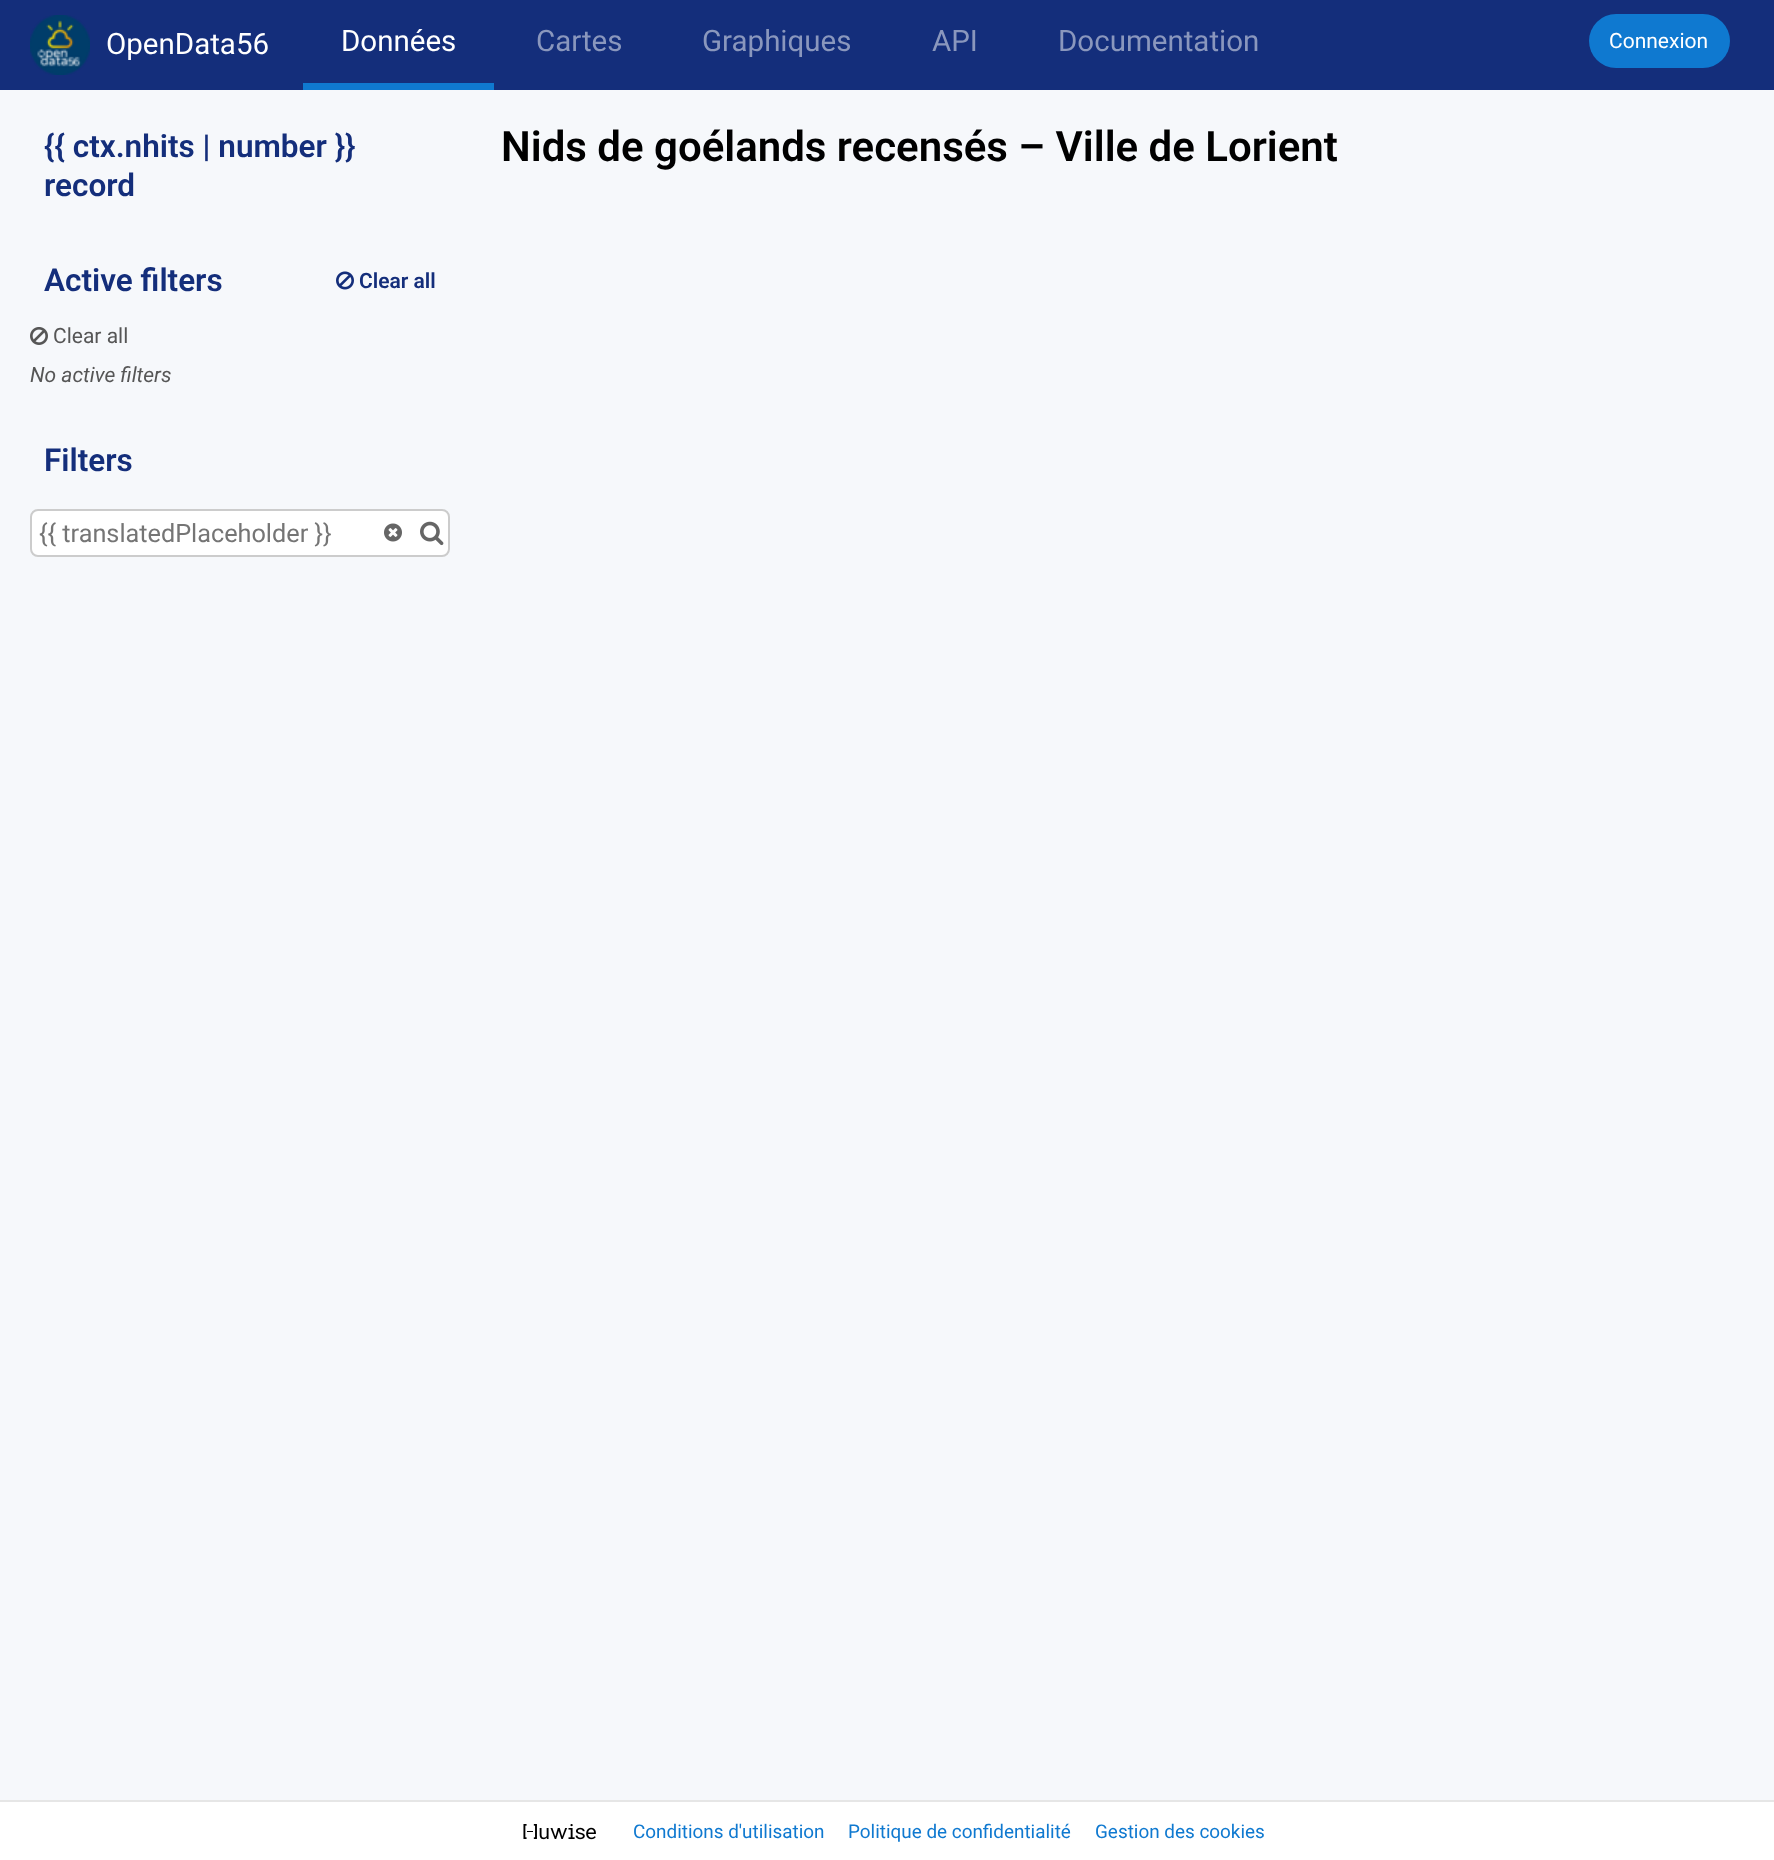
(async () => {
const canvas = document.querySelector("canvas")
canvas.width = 1774
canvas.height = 1860
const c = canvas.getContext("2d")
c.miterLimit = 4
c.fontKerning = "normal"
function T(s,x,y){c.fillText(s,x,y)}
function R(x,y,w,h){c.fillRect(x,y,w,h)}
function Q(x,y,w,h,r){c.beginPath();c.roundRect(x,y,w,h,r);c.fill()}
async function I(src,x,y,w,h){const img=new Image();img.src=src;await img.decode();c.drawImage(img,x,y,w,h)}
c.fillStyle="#f6f8fb"
R(0,0,1774,1860)
c.fillStyle="#142e7b"
R(0,0,1774,90)
await I("1.png",30,15,60,60)
c.font="29.5px Roboto"
c.fillStyle="#fff"
T("OpenData56",106,54)
c.fillStyle="#0f79d0"
R(303,83,191,7)
c.fillStyle="#fff"
T("Données",341,51)
c.fillStyle="#8a97bd"
T("Cartes",536,51)
T("Graphiques",702,51)
T("API",932,51)
T("Documentation",1058,51)
c.fillStyle="#0f79d0"
Q(1589,14,141,54,27)
c.font="21px Roboto"
c.fillStyle="#fff"
T("Connexion",1609,48)
c.font="600 31.5px Roboto"
c.fillStyle="#142e7b"
T("{{ ctx.nhits | number }}",44,157)
T("record",44,196)
T("Active filters",44,291)
await I("2.png",336,271,18,19)
c.font="600 21px Roboto"
T("Clear all",359,288)
await I("3.png",30,327,18,18)
c.font="21px Roboto"
c.fillStyle="#565656"
T("Clear all",53,343)
c.font="italic 21px Roboto"
T("No active filters",30,382)
c.font="600 31.5px Roboto"
c.fillStyle="#142e7b"
T("Filters",44,471)
c.fillStyle="#fff"
c.beginPath()
c.roundRect(31,510,418,46,7)
c.fill()
c.strokeStyle="#ccc"
c.lineWidth=2
c.stroke()
c.font="25.25px Roboto"
c.fillStyle="#757575"
T("{{ translatedPlaceholder }}",39,542)
await I("4.png",384,523,18,19)
await I("5.png",420,521,24,25)
c.font="600 42px Roboto"
c.fillStyle="#000"
T("Nids de goélands recensés – Ville de Lorient",501,161)
c.fillStyle="#fff"
R(0,1802,1774,58)
c.fillStyle="#e6e6e6"
R(0,1800,1774,2)
await I("6.png",523,1824,73,16)
c.font="18.9px Roboto"
c.fillStyle="#0f79d0"
T("Conditions d'utilisation",633,1838)
T("Politique de confidentialité",848,1838)
T("Gestion des cookies",1095,1838)
})()
